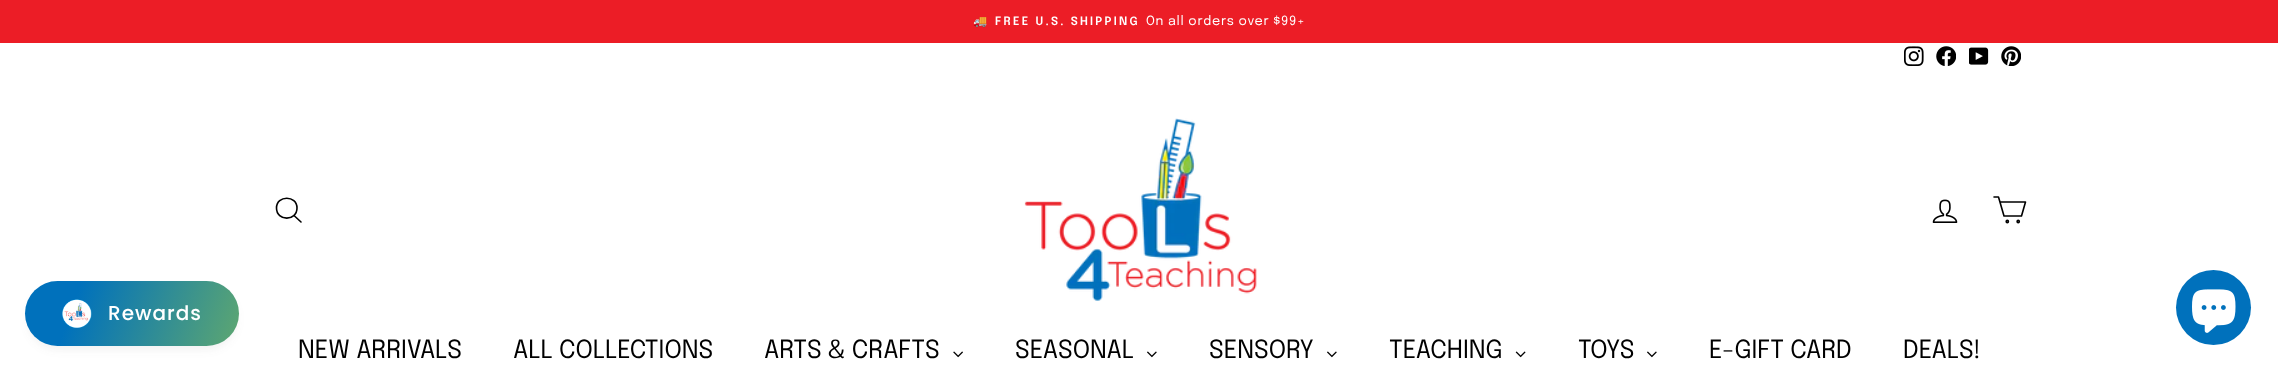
(async () => {
const canvas = document.querySelector("canvas")
canvas.width = 2278
canvas.height = 371
const c = canvas.getContext("2d")
c.miterLimit = 4
c.fontKerning = "normal"
function T(s,x,y){c.fillText(s,x,y)}
function R(x,y,w,h){c.fillRect(x,y,w,h)}
function Q(x,y,w,h,r){c.beginPath();c.roundRect(x,y,w,h,r);c.fill()}
async function I(src,x,y,w,h){const img=new Image();img.src=src;await img.decode();c.drawImage(img,x,y,w,h)}
let gradient, path
c.fillStyle="#fff"
R(0,0,2278,371)
c.fillStyle="#44444414"
c.filter="blur(5px)"
c.beginPath()
c.roundRect(28,289,208,60,30)
c.fill()
c.filter="none"
gradient = c.createLinearGradient(27,276,321,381)
gradient.addColorStop(.17,"#0071bc")
gradient.addColorStop(1,"#8fc349")
c.fillStyle = gradient
Q(25,281,214,65,32.5)
await I("1.png",62,299,30,29)
c.letterSpacing="1px"
c.font="500 20px Poppins"
c.fillStyle="#fff"
T("Rewards",108,320)
c.fillStyle="#ec1d26"
R(0,0,2278,43)
c.letterSpacing="2.25px"
c.font="bold 11.5px Noto Color Emoji"
c.fillStyle="#fff"
T("🚚",973,25)
c.font="600 11.5px Epilogue"
T("FREE U.S. SHIPPING",995,25)
c.letterSpacing="0.75px"
c.font="12.75px Epilogue"
T("On all orders over $99+",1146,25)
await I("2.png",1904,46,20,20)
await I("3.png",1936,46,20,20)
await I("4.png",1969,47,20,18)
await I("5.png",2001,46,20,20)
path = new Path2D("M297 208c0 13.5-20.5 13.5-20.5 0c0-13 20.5-13 20.5 0zm4 14l-7-6.5")
c.strokeStyle="#000"
c.lineWidth=1.6
c.lineCap="round"
c.lineJoin="round"
c.stroke(path)
await I("6.png",1024,118,233,183)
await I("7.png",1932,199,26,24)
path = new Path2D("M2000 202h25.5l-4 14h-17.5l-5.5-19h-4.5")
c.stroke(path)
c.beginPath()
c.arc(2007.3,221.5,1.1,0,7)
c.stroke()
c.beginPath()
c.arc(2018.2,221.5,1.1,0,7)
c.stroke()
c.letterSpacing="0px"
c.font="25px Epilogue"
c.fillStyle="#000"
T("NEW ARRIVALS",298,358)
T("ALL COLLECTIONS",513,358)
T("ARTS & CRAFTS",764,358)
await I("8.png",953,351,10,7)
T("SEASONAL",1015,358)
await I("9.png",1147,351,10,7)
T("SENSORY",1209,358)
await I("9.png",1327,351,10,7)
T("TEACHING",1389,358)
await I("10.png",1515,351,11,7)
T("TOYS",1578,358)
await I("9.png",1647,351,10,7)
T("E-GIFT CARD",1709,358)
T("DEALS!",1903,358)
c.fillStyle="#0071bc"
c.beginPath()
c.arc(2213.5,307.5,37.5,0,7)
c.fill()
await I("11.png",2192,289,44,44)
})()
